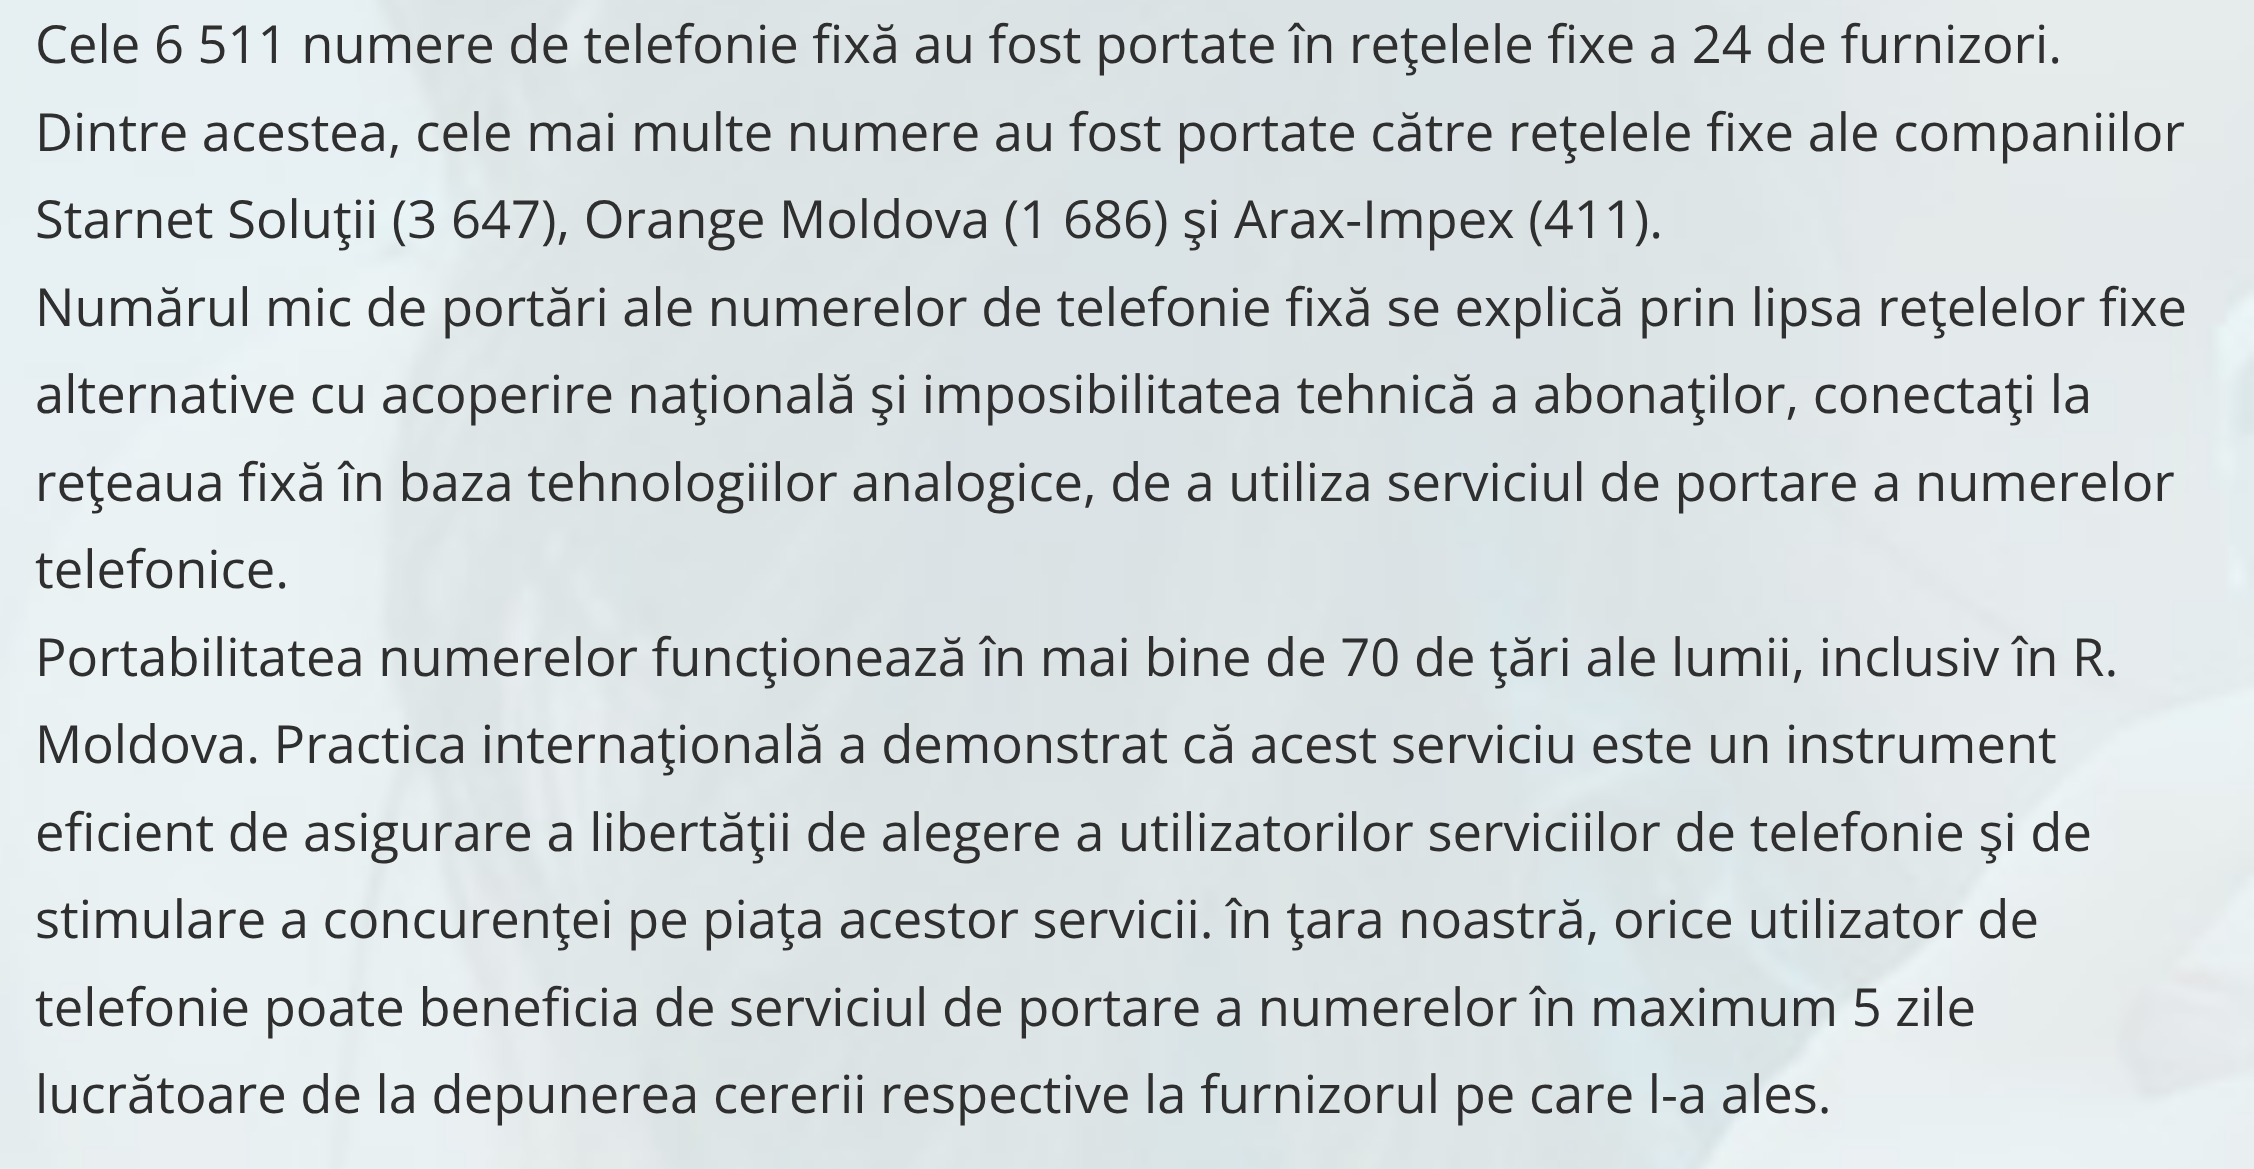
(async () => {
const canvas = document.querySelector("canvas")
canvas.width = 2254
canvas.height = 1169
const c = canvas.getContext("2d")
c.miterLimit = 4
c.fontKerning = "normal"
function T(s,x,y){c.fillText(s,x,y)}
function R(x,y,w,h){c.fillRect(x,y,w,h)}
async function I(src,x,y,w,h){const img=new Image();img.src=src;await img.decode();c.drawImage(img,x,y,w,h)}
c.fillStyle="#fff"
R(0,0,2254,1169)
await I("1.png",0,0,2254,1169)
c.font="52.5px Open Sans"
c.fillStyle="#2f2f2f"
T("Cele 6 511 numere de telefonie fixă au fost portate în reţelele fixe a 24 de furnizori.",35,63)
T("Dintre acestea, cele mai multe numere au fost portate către reţelele fixe ale companiilor",35,151)
T("Starnet Soluţii (3 647), Orange Moldova (1 686) şi Arax-Impex (411).",35,238)
T("Numărul mic de portări ale numerelor de telefonie fixă se explică prin lipsa reţelelor fixe",35,326)
T("alternative cu acoperire naţională şi imposibilitatea tehnică a abonaţilor, conectaţi la",35,413)
T("reţeaua fixă în baza tehnologiilor analogice, de a utiliza serviciul de portare a numerelor",35,501)
T("telefonice.",35,588)
T("Portabilitatea numerelor funcţionează în mai bine de 70 de ţări ale lumii, inclusiv în R.",35,676)
T("Moldova. Practica internaţională a demonstrat că acest serviciu este un instrument",35,763)
T("eficient de asigurare a libertăţii de alegere a utilizatorilor serviciilor de telefonie şi de",35,851)
T("stimulare a concurenţei pe piaţa acestor servicii. în ţara noastră, orice utilizator de",35,938)
T("telefonie poate beneficia de serviciul de portare a numerelor în maximum 5 zile",35,1026)
T("lucrătoare de la depunerea cererii respective la furnizorul pe care l-a ales.",35,1113)
})()
